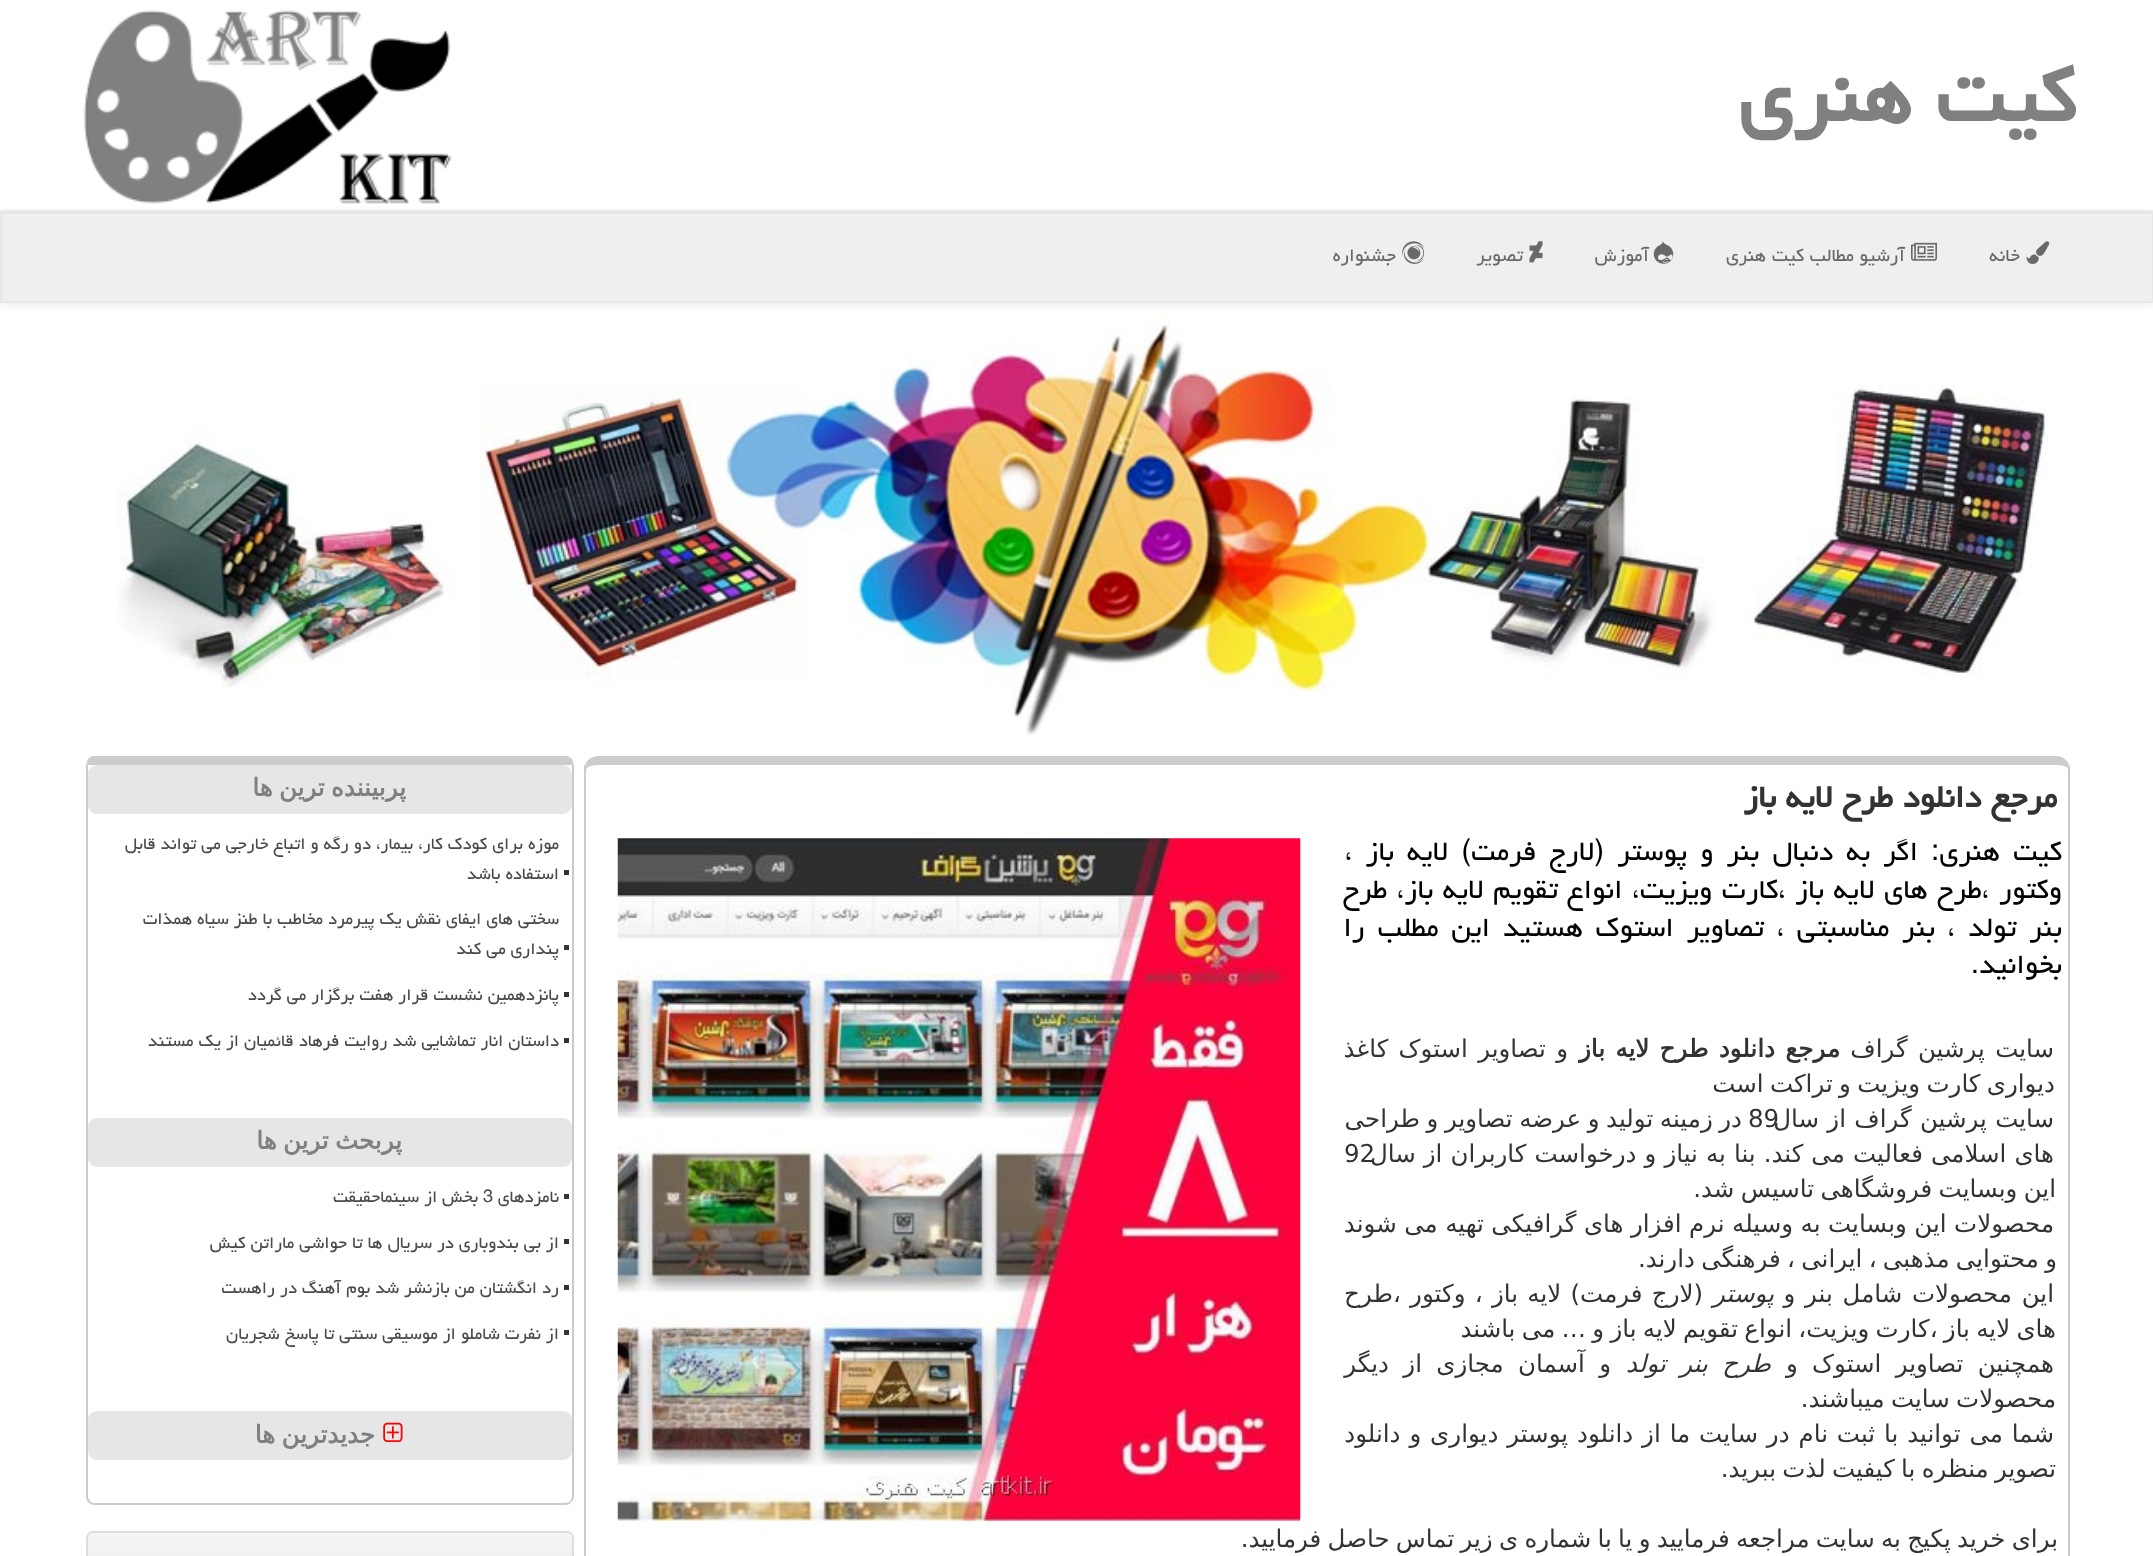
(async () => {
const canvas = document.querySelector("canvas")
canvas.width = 2153
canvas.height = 1556
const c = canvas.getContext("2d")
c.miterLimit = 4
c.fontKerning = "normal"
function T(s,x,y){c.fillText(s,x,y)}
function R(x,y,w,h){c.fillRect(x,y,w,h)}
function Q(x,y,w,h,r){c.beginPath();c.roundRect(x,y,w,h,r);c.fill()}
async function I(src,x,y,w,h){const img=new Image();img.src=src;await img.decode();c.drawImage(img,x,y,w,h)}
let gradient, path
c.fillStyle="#fff"
R(0,0,2153,1556)
c.fillStyle="#eee"
R(0,210,2153,2)
c.direction="rtl"
c.font="bold 98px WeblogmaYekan"
c.fillStyle="#808080"
T("كیت هنری",2075,121)
await I("1.png",83,10,369,194)
await I("7.png",117,317,1932,418)
c.fillStyle="#00000012"
c.filter="blur(4.5px)"
c.beginPath()
c.rect(0,214,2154,91)
c.fill()
c.filter="none"
c.fillStyle="#efefef"
R(2,216,2150,85)
c.fillStyle="#f1f1f1"
R(2,214,2151,2)
c.strokeStyle="#e7e7e7"
c.lineWidth=2
c.strokeRect(1,213,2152,89)
await I("2.png",2026,241,24,23)
c.font="22.75px WeblogmaYekan"
c.fillStyle="#696969"
T("خانه",2020,261)
await I("3.png",1911,242,26,19)
T("آرشیو مطالب كیت هنری",1905,261)
await I("4.png",1653,241,21,23)
T("آموزش",1649,261)
await I("5.png",1529,241,14,22)
T("تصویر",1523,261)
await I("6.png",1402,241,22,23)
T("جشنواره",1396,261)
c.fillStyle="#ccc"
path = new Path2D("M598 756c-5 0-10 3-12 7l1 5c2-2 6-3 11-3h1458c6 0 11 1 12 4l1-5c-3-5-7-8-13-8z")
c.fill(path)
c.fillStyle="#cbcbcb"
path = new Path2D("M2069 764c1 2 1 4 1 6v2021c0 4-2 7-4 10l-1-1c2-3 3-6 3-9v-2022z")
c.fill(path)
path = new Path2D("M584 766l2-3l1 5l-1 2v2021c0 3 1 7 4 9l-1 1c-2-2-4-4-5-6z")
c.fill(path)
c.font="bold 39.25px WeblogmaYekan"
c.fillStyle="#333"
T("مرجع دانلود طرح لایه باز",2057,807)
c.wordSpacing="4.75px"
c.font="34.3px WeblogmaYekan"
c.fillStyle="#000"
T("كیت هنری: اگر به دنبال بنر و پوستر (لارج فرمت) لایه باز ،",2062,860)
await I("8.png",617,838,684,683)
c.wordSpacing="1.25px"
T("وكتور ،طرح های لایه باز ،كارت ویزیت، انواع تقویم لایه باز، طرح",2062,898)
c.wordSpacing="4.5px"
T("بنر تولد ، بنر مناسبتی ، تصاویر استوك هستید این مطلب را",2062,936)
c.wordSpacing="0px"
T("بخوانید.",2062,973)
c.wordSpacing="2.5px"
c.font="24.5px DejaVu Sans"
c.fillStyle="#333"
T("سایت پرشین گراف",2054,1057)
c.font="bold 24.5px DejaVu Sans"
T("مرجع دانلود طرح لایه باز",1840,1057)
c.font="24.5px DejaVu Sans"
T("و تصاویر استوک کاغذ",1568,1057)
c.wordSpacing="-1.5px"
T("دیواری کارت ویزیت و تراکت است",2055,1092)
c.wordSpacing="0px"
c.direction="ltr"
T("89",1748,1127)
c.wordSpacing="0.5px"
c.direction="rtl"
T("سایت پرشین گراف از سال",2054,1127)
c.wordSpacing="-1.25px"
T("در زمینه تولید و عرضه تصاویر و طراحی",1742,1127)
c.wordSpacing="0px"
c.direction="ltr"
T("92",1344,1162)
c.wordSpacing="0.25px"
c.direction="rtl"
T("های اسلامی فعالیت می کند. بنا به نیاز و درخواست کاربران از سال",2054,1162)
c.wordSpacing="-1.5px"
T("این وبسایت فروشگاهی تاسیس شد.",2056,1197)
c.wordSpacing="-0.3px"
T("محصولات این وبسایت به وسیله نرم افزار های گرافیکی تهیه می شوند",2054,1232)
c.wordSpacing="-1.5px"
T("و محتوایی مذهبی ، ایرانی ، فرهنگی دارند.",2057,1267)
c.wordSpacing="2px"
T("این محصولات شامل بنر و",2054,1302)
c.wordSpacing="0px"
c.font="italic 24.5px DejaVu Sans"
T("پوستر",1774,1302)
c.wordSpacing="1.5px"
c.font="24.5px DejaVu Sans"
T("(لارج فرمت) لایه باز ، وکتور ،طرح",1703,1302)
c.wordSpacing="-1.5px"
T("های لایه باز ،کارت ویزیت، انواع تقویم لایه باز و … می باشند",2056,1337)
c.wordSpacing="6.5px"
T("همچنین تصاویر استوک و",2054,1372)
c.font="italic 24.5px DejaVu Sans"
T("طرح بنر تولد",1771,1372)
c.font="24.5px DejaVu Sans"
T("و آسمان مجازی از دیگر",1611,1372)
c.wordSpacing="-1.5px"
T("محصولات سایت میباشند.",2056,1407)
c.wordSpacing="1.1px"
T("شما می توانید با ثبت نام در سایت ما از دانلود پوستر دیواری و دانلود",2054,1442)
c.wordSpacing="-1.5px"
T("تصویر منظره با کیفیت لذت ببرید.",2056,1477)
T("برای خرید پکیج به سایت مراجعه فرمایید و یا با شماره ی زیر تماس حاصل فرمایید.",2058,1547)
c.fillStyle="#ccc"
path = new Path2D("M94 756c-3 0-6 2-7 5l1 6v-2h484v1l1-5c-1-3-4-5-8-5z")
c.fill(path)
c.fillStyle="#cbcbcb"
path = new Path2D("M574 1496v-731l-1-4l-1 5v730c0 2-1 4-2 5l1 1c2-1 3-4 3-6z")
c.fill(path)
path = new Path2D("M94 1505h471c3 0 5-1 6-3l-1-1c-1 1-3 2-5 2h-471c-2 0-3-1-4-2l-2 1c2 2 4 3 6 3z")
c.fill(path)
path = new Path2D("M87 761l-1 4v731c0 2 1 5 2 6l2-1c-1-1-2-3-2-5v-729z")
c.fill(path)
c.fillStyle="#e6e6e6"
Q(88,765,484,49,9)
c.font="bold 24.5px DejaVu Sans"
c.fillStyle="#808080"
T("پربیننده ترین ها",406,796)
c.fillStyle="#333"
R(564,870,5,5)
c.wordSpacing="0px"
c.font="21px WeblogmaYekan"
c.fillStyle="#4a4a4a"
T("موزه برای کودک کار، بیمار، دو رگه و اتباع خارجی می تواند قابل",559,849)
T("استفاده باشد",559,879)
c.fillStyle="#333"
R(564,945,5,5)
c.fillStyle="#4a4a4a"
T("سختی های ایفای نقش یک پیرمرد مخاطب با طنز سیاه همذات",559,924)
T("پنداری می کند",559,954)
c.fillStyle="#333"
R(564,992,5,5)
c.fillStyle="#4a4a4a"
T("پانزدهمین نشست قرار هفت برگزار می گردد",559,1000)
c.fillStyle="#333"
R(564,1038,5,5)
c.fillStyle="#4a4a4a"
T("داستان انار تماشایی شد روایت فرهاد قائمیان از یک مستند",559,1046)
c.fillStyle="#e6e6e6"
Q(88,1118,484,49,9)
c.wordSpacing="-1.5px"
c.font="bold 24.5px DejaVu Sans"
c.fillStyle="#808080"
T("پربحث ترین ها",402,1149)
c.fillStyle="#333"
R(564,1194,5,5)
c.wordSpacing="0px"
c.font="21px WeblogmaYekan"
c.fillStyle="#4a4a4a"
T("نامزدهای",559,1202)
c.direction="ltr"
T("3",483,1202)
c.direction="rtl"
T("بخش از سینماحقیقت",478,1202)
c.fillStyle="#333"
R(564,1239,5,5)
c.fillStyle="#4a4a4a"
T("از بی بندوباری در سریال ها تا حواشی ماراتن کیش",559,1248)
c.fillStyle="#333"
R(564,1285,5,5)
c.fillStyle="#4a4a4a"
T("رد انگشتان من بازنشر شد بوم آهنگ در راهست",559,1293)
c.fillStyle="#333"
R(564,1330,5,5)
c.fillStyle="#4a4a4a"
T("از نفرت شاملو از موسیقی سنتی تا پاسخ شجریان",559,1339)
c.fillStyle="#e6e6e6"
Q(88,1411,484,49,9)
await I("9.png",383,1422,20,20)
c.wordSpacing="-1.5px"
c.font="bold 24.5px DejaVu Sans"
c.fillStyle="#808080"
T("جدیدترین ها",375,1443)
c.beginPath()
c.roundRect(87,1532,486,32,6)
c.strokeStyle="#ddd"
c.stroke()
gradient = c.createLinearGradient(330,1533,330,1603)
gradient.addColorStop(0,"#f5f5f5")
gradient.addColorStop(1,"#e8e8e8")
c.fillStyle = gradient
path = new Path2D("M93 1533h474c3 0 5 2 5 5v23h-484v-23c0-3 2-5 5-5z")
c.fill(path)
})()
